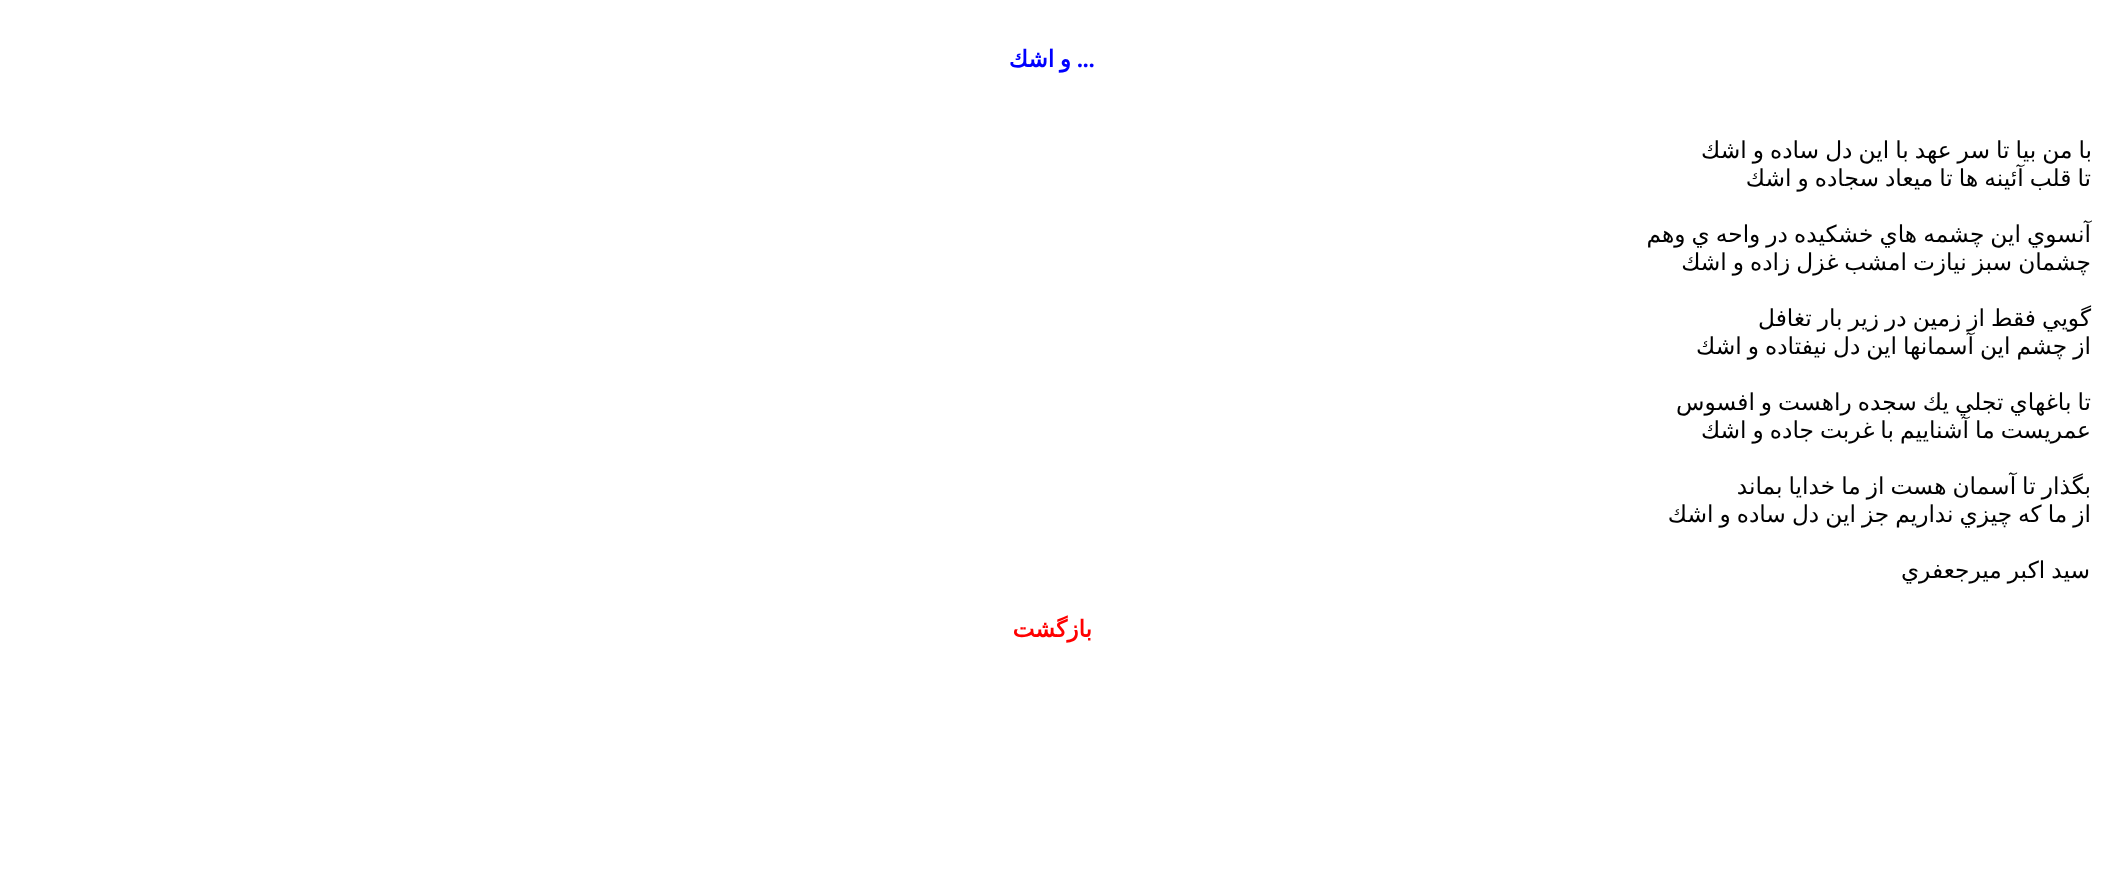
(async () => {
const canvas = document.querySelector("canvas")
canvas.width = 2103
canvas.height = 879
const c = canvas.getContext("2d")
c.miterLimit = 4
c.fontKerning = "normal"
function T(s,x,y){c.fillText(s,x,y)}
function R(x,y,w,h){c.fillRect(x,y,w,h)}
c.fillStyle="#fff"
R(0,0,2103,879)
c.font="bold 23.3px Liberation Serif"
c.fillStyle="#00f"
T("...",1077,67)
c.wordSpacing="-2px"
c.direction="rtl"
c.font="bold 23.3px DejaVu Sans"
T("و اشك",1071,67)
c.wordSpacing="-1.4px"
c.font="23.3px DejaVu Sans"
c.fillStyle="#000"
T("با من بيا تا سر عهد با اين دل ساده و اشك",2092,158)
T("تا قلب آئينه ها تا ميعاد سجاده و اشك",2091,186)
T("آنسوي اين چشمه هاي خشكيده در واحه ي وهم",2091,242)
T("چشمان سبز نيازت امشب غزل زاده و اشك",2091,270)
T("گويي فقط از زمين در زير بار تغافل",2091,326)
T("از چشم اين آسمانها اين دل نيفتاده و اشك",2091,354)
T("تا باغهاي تجلي يك سجده راهست و افسوس",2091,410)
T("عمريست ما آشناييم با غربت جاده و اشك",2091,438)
T("بگذار تا آسمان هست از ما خدايا بماند",2091,494)
T("از ما كه چيزي نداريم جز اين دل ساده و اشك",2091,522)
T("سيد اكبر ميرجعفري",2090,578)
c.wordSpacing="0px"
c.font="bold 23.3px DejaVu Sans"
c.fillStyle="#f00"
T("بازگشت",1092,637)
})()
